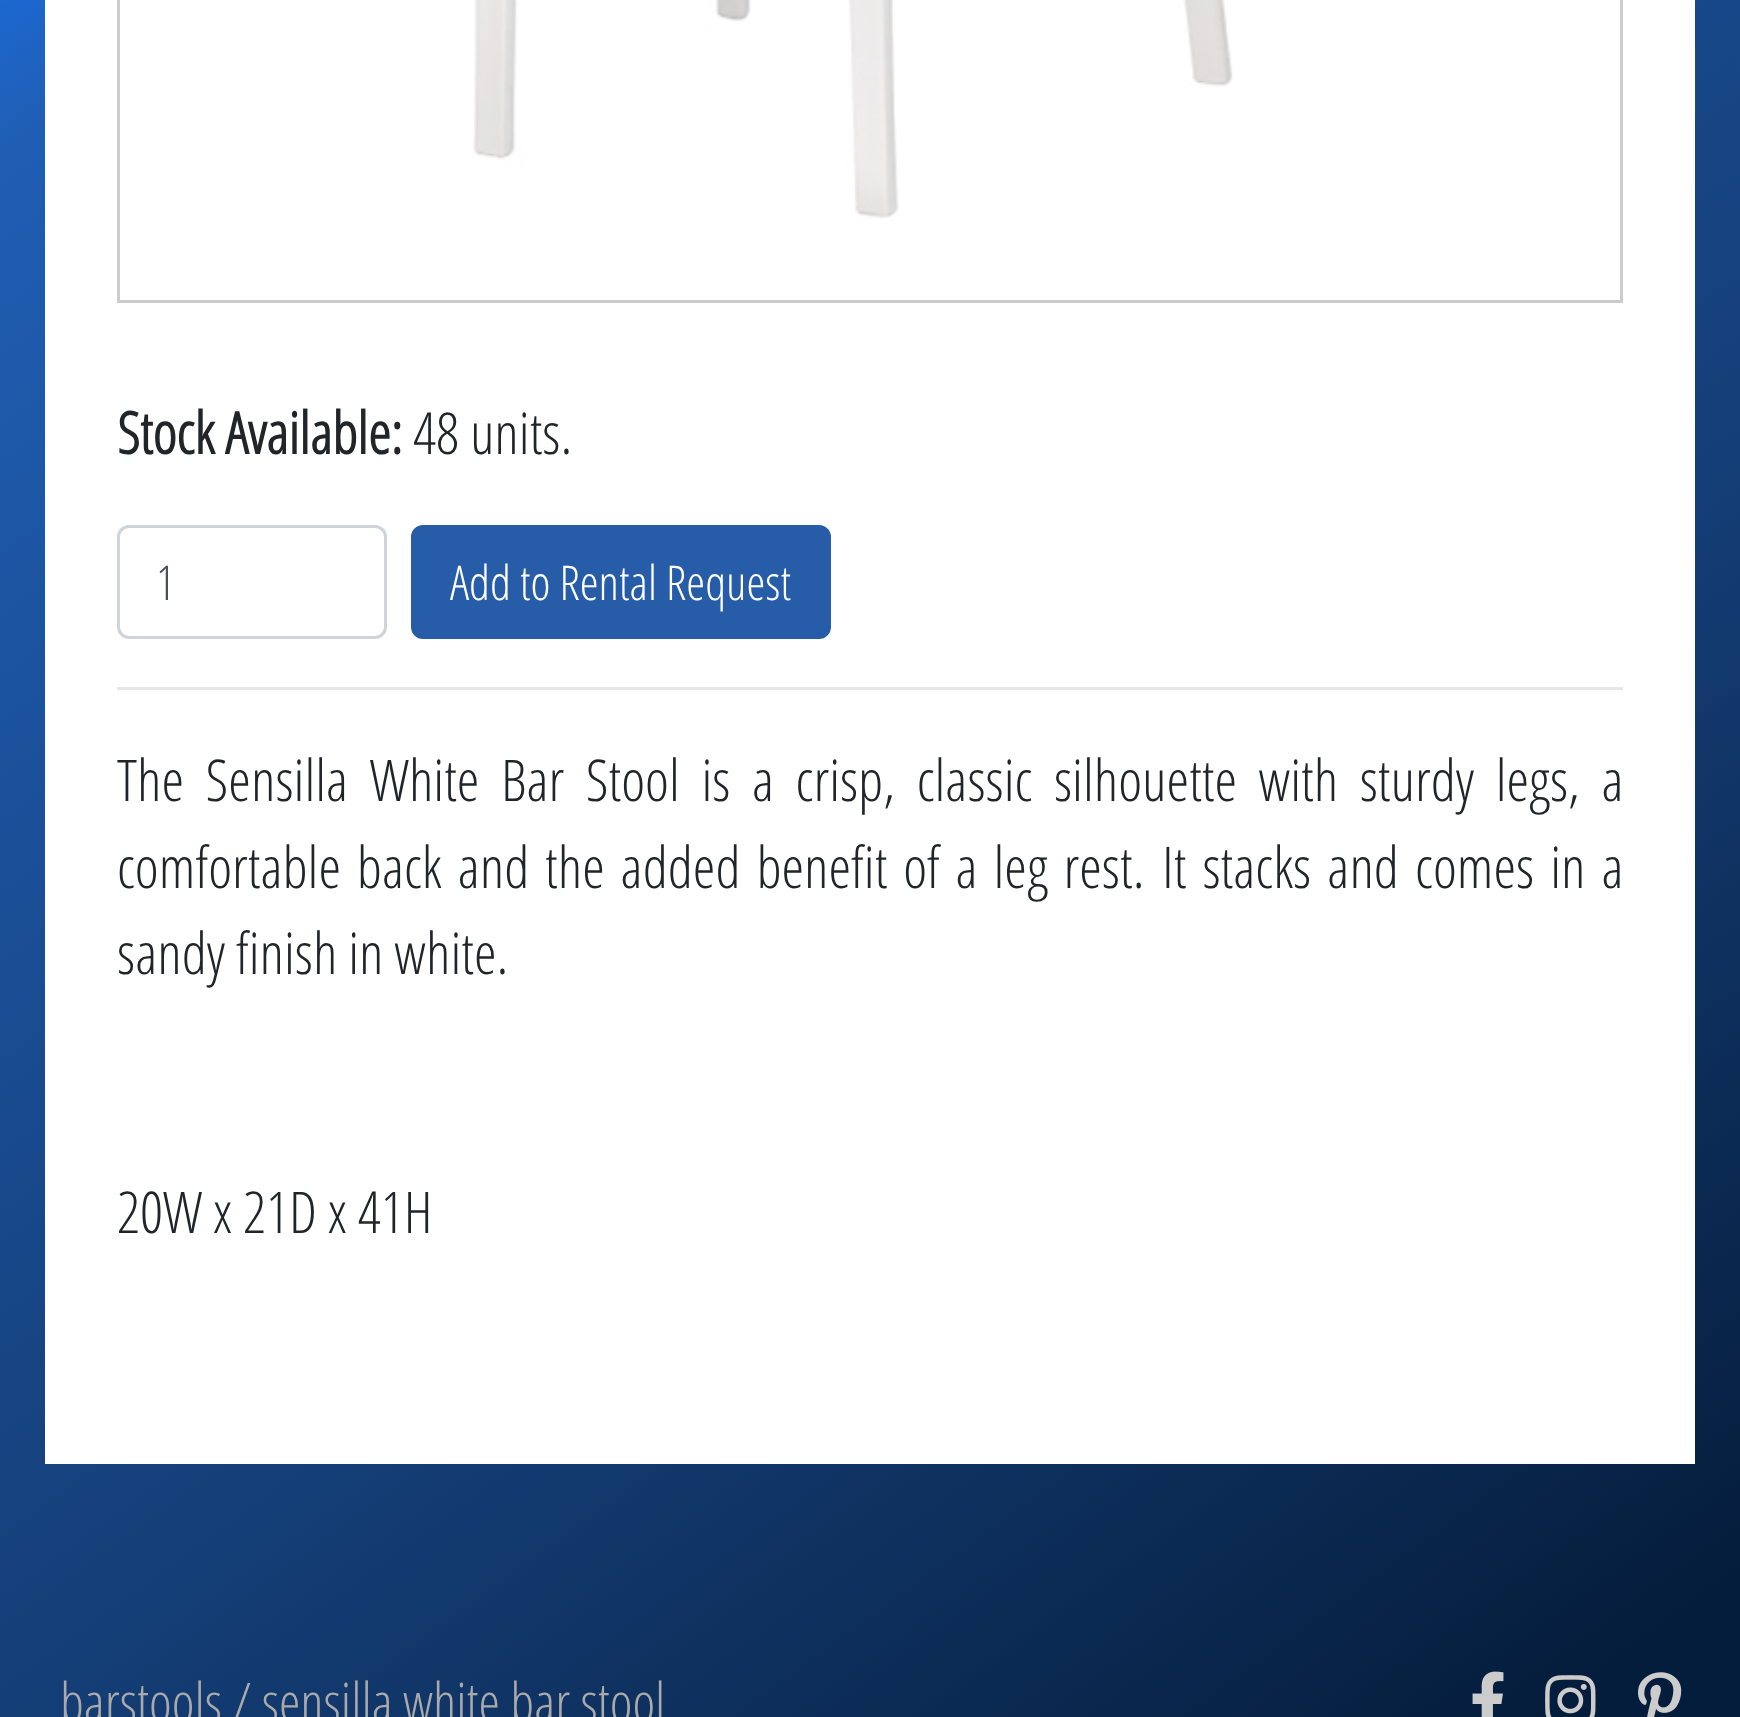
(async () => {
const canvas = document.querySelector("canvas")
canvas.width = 1740
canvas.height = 1717
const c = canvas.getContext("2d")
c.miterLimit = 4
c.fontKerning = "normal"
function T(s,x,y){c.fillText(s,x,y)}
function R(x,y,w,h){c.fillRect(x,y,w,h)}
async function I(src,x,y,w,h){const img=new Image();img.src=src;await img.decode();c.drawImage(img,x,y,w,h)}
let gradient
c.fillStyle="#fff"
R(0,0,1740,1717)
gradient = c.createLinearGradient(161,-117,1579,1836)
gradient.addColorStop(0,"#1c68d1")
gradient.addColorStop(.05,"#205eb4")
gradient.addColorStop(.59,"#143d75")
gradient.addColorStop(.95,"#051d3c")
c.fillStyle = gradient
R(0,0,1740,1717)
c.fillStyle="#fff"
R(45,0,1650,1464)
c.strokeStyle="#ccc"
c.lineWidth=3
c.strokeRect(118.5,-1.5,1503,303)
await I("1.png",473,0,760,219)
c.font="bold 57.6px Open Sans Condensed"
c.fillStyle="#212529"
T("Stock Available:",117,454)
c.font="300 57.6px Open Sans Condensed"
T("48 units.",413,454)
c.beginPath()
c.roundRect(118.5,526.5,267,111,10.5)
c.strokeStyle="#ced4da"
c.stroke()
c.font="300 48px Open Sans Condensed"
c.fillStyle="#495057"
T("1",156,600)
c.fillStyle="#265ca8"
c.beginPath()
c.roundRect(412.5,526.5,417,111,10.5)
c.fill()
c.strokeStyle="#265ca8"
c.stroke()
c.fillStyle="#fff"
T("Add to Rental Request",450,600)
c.fillStyle="#e6e6e6"
R(117,687,1506,3)
c.wordSpacing="10.75px"
c.font="300 57.6px Open Sans Condensed"
c.fillStyle="#212529"
T("The Sensilla White Bar Stool is a crisp, classic silhouette with sturdy legs, a",117,801)
c.wordSpacing="5px"
T("comfortable back and the added benefit of a leg rest.",117,888)
c.wordSpacing="5.25px"
T("It stacks and comes in a",1162,888)
c.wordSpacing="0px"
T("sandy finish in white.",117,974)
T("20W x 21D x 41H",117,1233)
c.font="300 54.75px Open Sans Condensed"
c.fillStyle="#aaa"
T("barstools / sensilla white bar stool",60,1722)
await I("2.png",1472,1671,32,46)
await I("3.png",1545,1675,51,42)
await I("4.png",1638,1672,44,45)
})()
